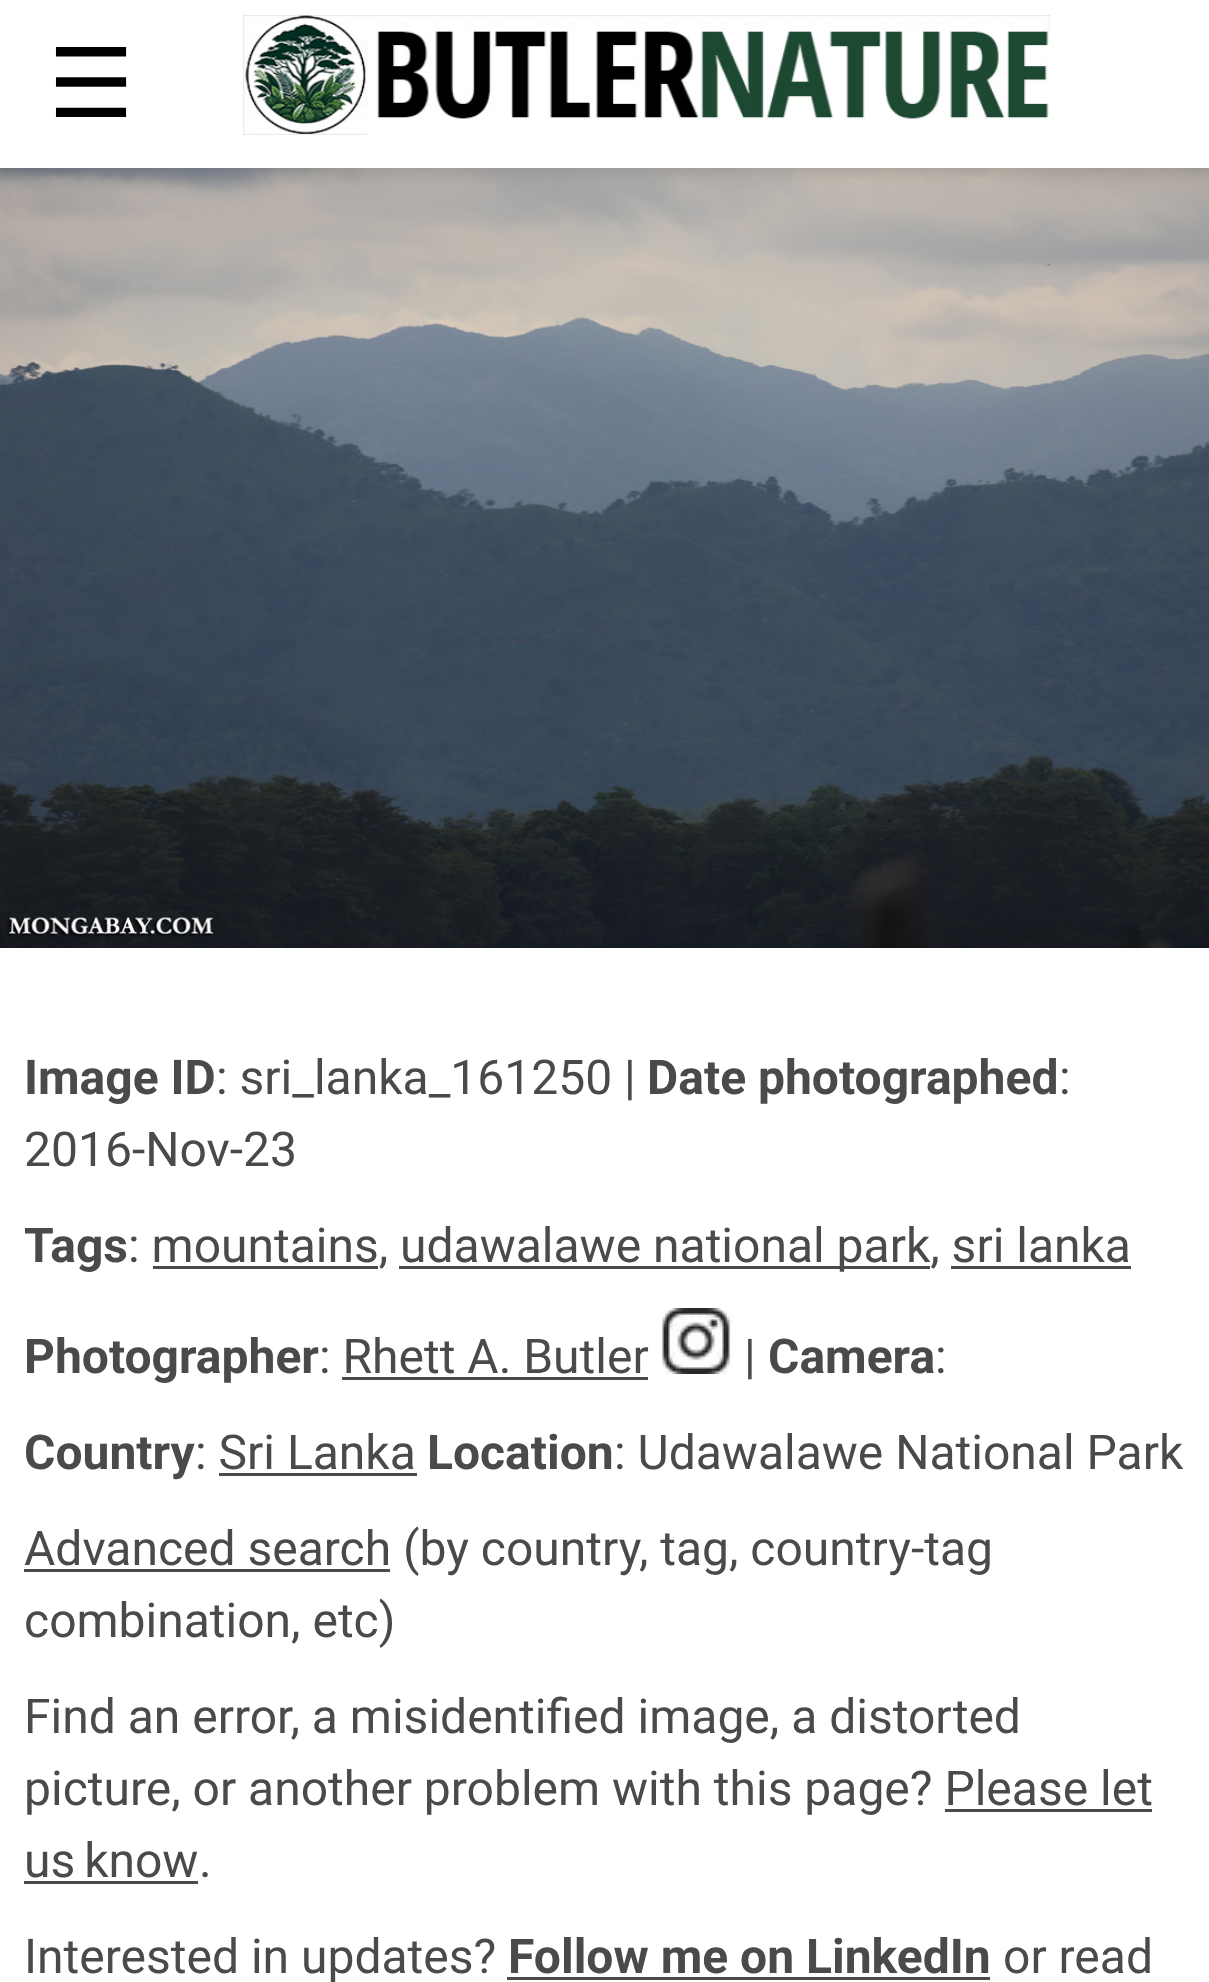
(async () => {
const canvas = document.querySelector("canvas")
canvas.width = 1209
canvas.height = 1982
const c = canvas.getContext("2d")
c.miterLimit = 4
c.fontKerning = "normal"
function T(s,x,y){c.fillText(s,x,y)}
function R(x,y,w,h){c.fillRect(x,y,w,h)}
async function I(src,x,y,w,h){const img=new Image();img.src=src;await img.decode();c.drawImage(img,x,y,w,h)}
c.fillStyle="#fff"
R(0,0,1209,1982)
await I("2.png",0,168,1209,780)
c.fillStyle="#0000001a"
c.filter="blur(7.5px)"
c.beginPath()
c.rect(-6,-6,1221,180)
c.fill()
c.filter="none"
c.fillStyle="#fff"
R(0,0,1209,168)
c.font="96px DejaVu Sans"
c.fillStyle="#000"
T("☰",48,117)
await I("1.png",243,15,807,120)
c.font="bold 48px Roboto"
c.fillStyle="#4a4a4a"
T("Image ID",24,1094)
c.font="48px Roboto"
T(": sri_lanka_161250 |",216,1094)
c.font="bold 48px Roboto"
T("Date photographed",647,1094)
c.font="48px Roboto"
T(":",1059,1094)
T("2016-Nov-23",24,1166)
c.font="bold 48px Roboto"
T("Tags",24,1262)
c.font="48px Roboto"
T(": mountains,",128,1262)
R(399,1266,531,3)
T("udawalawe national park, sri lanka",400,1262)
R(153,1266,225,3)
R(951,1266,180,3)
c.font="bold 48px Roboto"
T("Photographer",24,1373)
await I("3.png",662,1308,70,66)
R(342,1377,306,3)
c.font="48px Roboto"
T(": Rhett A. Butler",319,1373)
T("|",744,1373)
c.font="bold 48px Roboto"
T("Camera",768,1373)
c.font="48px Roboto"
T(":",935,1373)
c.font="bold 48px Roboto"
T("Country",24,1469)
c.font="48px Roboto"
T(": Sri Lanka",195,1469)
c.font="bold 48px Roboto"
T("Location",427,1469)
c.font="48px Roboto"
T(": Udawalawe National Park",614,1469)
R(219,1473,198,3)
R(24,1569,366,3)
T("Advanced search (by country, tag, country-tag",24,1565)
T("combination, etc)",24,1637)
T("Find an error, a misidentified image, a distorted",24,1733)
T("picture, or another problem with this page? Please let",24,1805)
c.wordSpacing="-3px"
T("us know",24,1877)
R(945,1809,207,3)
R(24,1881,174,3)
c.wordSpacing="0px"
T(".",199,1877)
T("Interested in updates?",24,1973)
c.font="bold 48px Roboto"
T("Follow me on LinkedIn",508,1973)
R(507,1977,483,3)
c.font="48px Roboto"
T("or read",1003,1973)
})()
